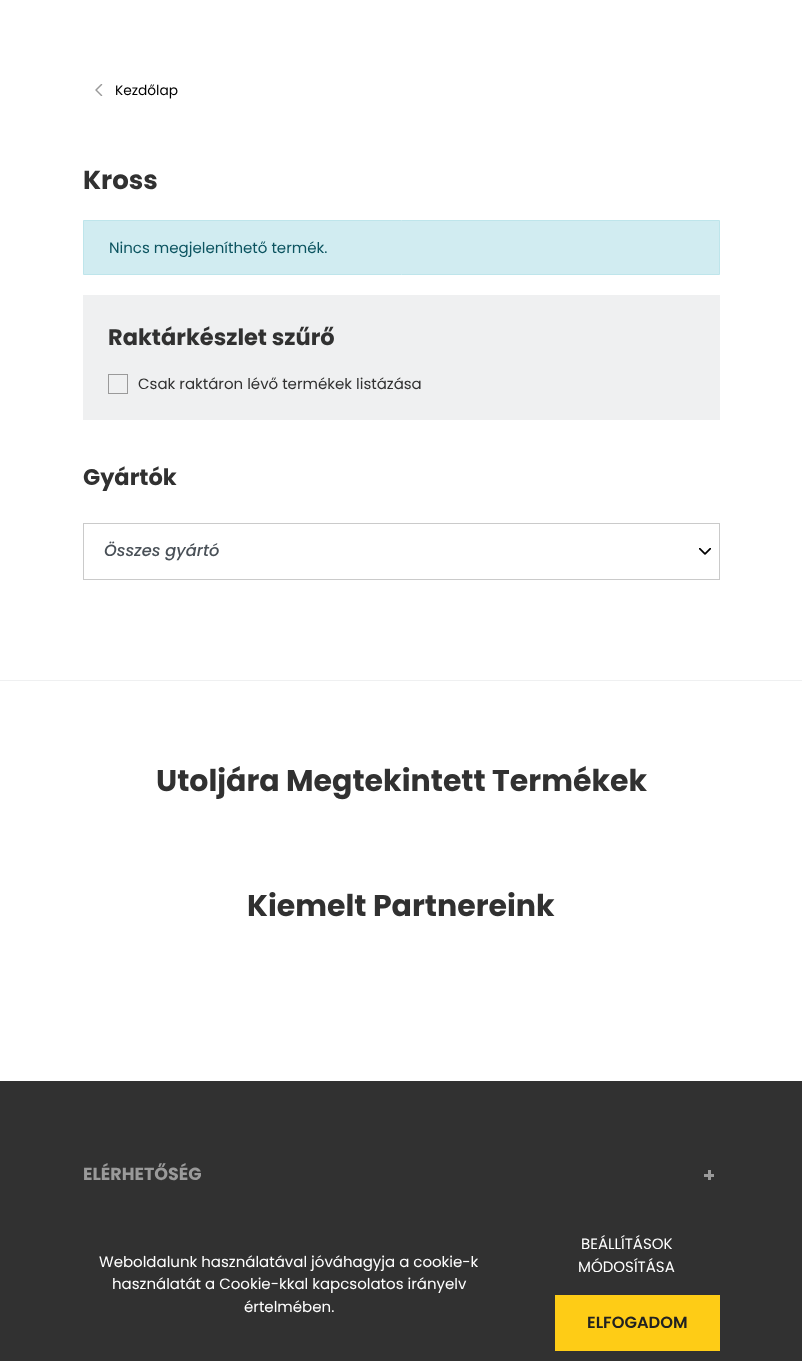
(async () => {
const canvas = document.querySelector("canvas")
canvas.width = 802
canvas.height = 1361
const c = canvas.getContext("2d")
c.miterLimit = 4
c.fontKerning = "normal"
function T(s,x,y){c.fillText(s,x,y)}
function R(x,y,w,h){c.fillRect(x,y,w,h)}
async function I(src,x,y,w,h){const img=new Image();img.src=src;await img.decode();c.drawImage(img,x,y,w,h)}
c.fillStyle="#fff"
R(0,0,802,1361)
await I("1.png",95,84,8,12)
c.font="13.75px Poppins"
c.fillStyle="#000"
T("Kezdőlap",115,95)
c.font="bold 26px Poppins"
c.fillStyle="#313131"
T("Kross",83,189)
c.fillStyle="#d1ecf1"
c.beginPath()
c.rect(83.5,220.5,636,54)
c.fill()
c.strokeStyle="#bee5eb"
c.stroke()
c.font="15px Poppins"
c.fillStyle="#0c5460"
T("Nincs megjeleníthető termék.",109,253)
c.fillStyle="#eff0f1"
R(83,295,637,125)
c.font="bold 22.5px Poppins"
c.fillStyle="#313131"
T("Raktárkészlet szűrő",108,345)
c.strokeStyle="#9a9a9a"
c.strokeRect(108.5,374.5,19,19)
c.font="15px Poppins"
T("Csak raktáron lévő termékek listázása",138,389)
c.font="bold 22.5px Poppins"
T("Gyártók",83,485)
await I("2.png",699,548,12,7)
c.strokeStyle="#cacaca"
c.strokeRect(83.5,523.5,636,56)
c.font="italic 500 16.25px Poppins"
c.fillStyle="#495057"
T("Összes gyártó",104,556)
c.fillStyle="#eff0f1"
R(0,680,802,1)
c.font="bold 30px Poppins"
c.fillStyle="#313131"
T("Utoljára Megtekintett Termékek",156,791)
T("Kiemelt Partnereink",247,916)
R(0,1081,802,280)
c.font="bold 17.5px Poppins"
c.fillStyle="#9a9a9a"
T("ELÉRHETŐSÉG",83,1180)
R(708,1170,3,10)
R(704,1174,10,3)
c.font="15px Poppins"
c.fillStyle="#fff"
T("Weboldalunk használatával jóváhagyja a cookie-k",99,1267)
T("használatát a Cookie-kkal kapcsolatos irányelv",112,1289)
T("értelmében.",244,1312)
T("BEÁLLÍTÁSOK",581,1249)
T("MÓDOSÍTÁSA",578,1272)
c.fillStyle="#fecc16"
R(555,1295,165,56)
c.font="600 16.25px Poppins"
c.fillStyle="#212121"
T("ELFOGADOM",587,1328)
})()
